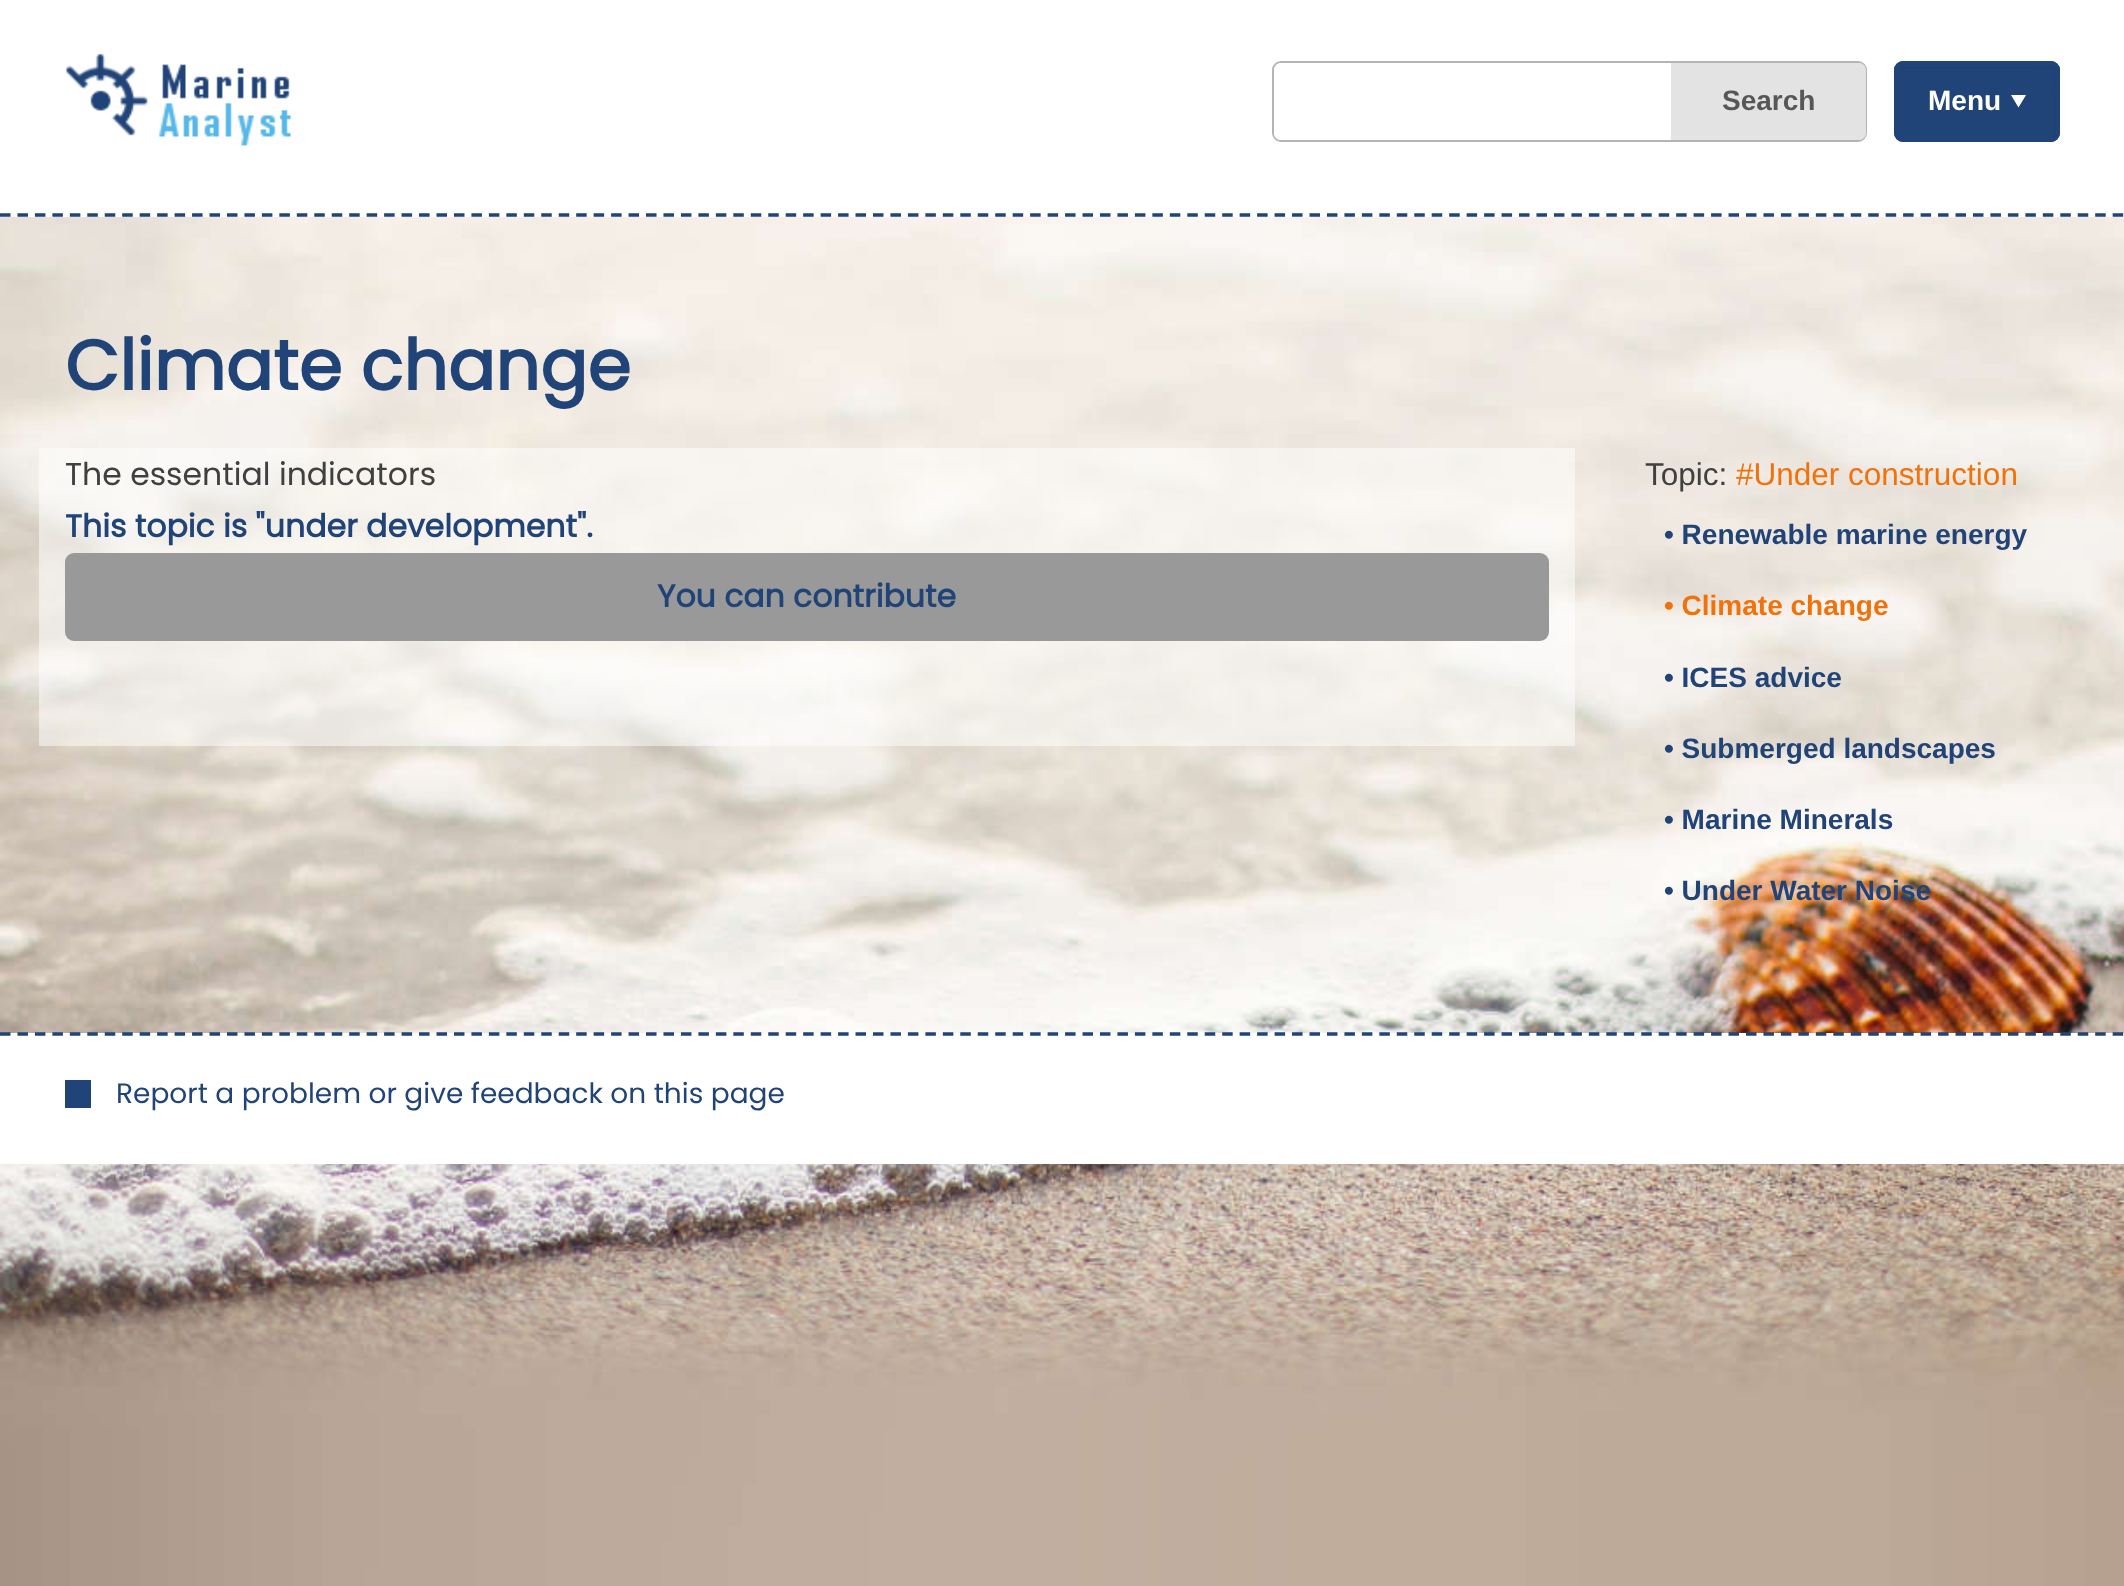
(async () => {
const canvas = document.querySelector("canvas")
canvas.width = 2124
canvas.height = 1586
const c = canvas.getContext("2d")
c.miterLimit = 4
c.fontKerning = "normal"
function T(s,x,y){c.fillText(s,x,y)}
function R(x,y,w,h){c.fillRect(x,y,w,h)}
function Q(x,y,w,h,r){c.beginPath();c.roundRect(x,y,w,h,r);c.fill()}
async function I(src,x,y,w,h){const img=new Image();img.src=src;await img.decode();c.drawImage(img,x,y,w,h)}
let path
c.fillStyle="#fff"
R(0,0,2124,1586)
await I("1.png",0,217,2124,1369)
path = new Path2D("M0 215h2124.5")
c.strokeStyle="#214478"
c.lineWidth=3.5
c.setLineDash([10.5,6.96])
c.stroke(path)
await I("2.png",66,53,225,93)
c.beginPath()
c.roundRect(1273,62,593,79,8)
c.strokeStyle="#b3b4b5"
c.lineWidth=2
c.setLineDash([])
c.stroke()
c.beginPath()
c.roundRect(1274,63,397,77,[7,0,0,7])
c.fill()
c.fillStyle="#e3e3e3"
c.beginPath()
c.roundRect(1671,63,195,77,[0,7,7,0])
c.fill()
c.font="bold 28px Liberation Sans"
c.fillStyle="#575757"
T("Search",1722,110)
c.fillStyle="#214478"
Q(1894,61,166,81,9)
c.fillStyle="#1f3f6f"
path = new Path2D("M1902 68h124c34 0 28-6 28 25v43c1-1 1-2 1-3v-62c0-2-2-4-4-4h-148c-2 0-4 2-4 4v1c0-2 1-4 3-4z")
c.fill(path)
c.beginPath()
c.roundRect(1896.5,63.5,161,76,6.5)
c.strokeStyle="#214478"
c.lineWidth=5
c.stroke()
c.fillStyle="#fff"
T("Menu",1928,110)
path = new Path2D("M2011 95l7.5 12.5l7.5-12.5z")
c.fill(path)
c.font="bold 70px Poppins"
c.fillStyle="#214478"
T("Climate change",65,390)
c.fillStyle="#ffffff80"
R(39,448,1536,298)
c.font="31.5px Poppins"
c.fillStyle="#404040"
T("The essential indicators",65,485)
c.font="bold 31.5px Poppins"
c.fillStyle="#214478"
T("This topic is \"under development\".",65,537)
c.fillStyle="#999"
Q(65,553,1484,88,9)
c.fillStyle="#214478"
T("You can contribute",657,607)
c.font="31.5px Liberation Sans"
c.fillStyle="#404040"
T("Topic:",1645,485)
c.fillStyle="#f1720b"
T("#Under construction",1736,485)
c.font="bold 28px Liberation Sans"
c.fillStyle="#214478"
T("• Renewable marine energy",1664,544)
c.fillStyle="#f1720b"
T("• Climate change",1664,615)
c.fillStyle="#214478"
T("• ICES advice",1664,687)
T("• Submerged landscapes",1664,758)
T("• Marine Minerals",1664,829)
T("• Under Water Noise",1664,900)
c.fillStyle="#fff"
R(0,1033,2124,131)
path = new Path2D("M0 1034h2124.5")
c.lineWidth=3.5
c.setLineDash([10.5,6.96])
c.stroke(path)
c.fillStyle="#214478"
R(65,1080,26,28)
c.font="28px Poppins"
T("Report a problem or give feedback on this page",116,1103)
})()
